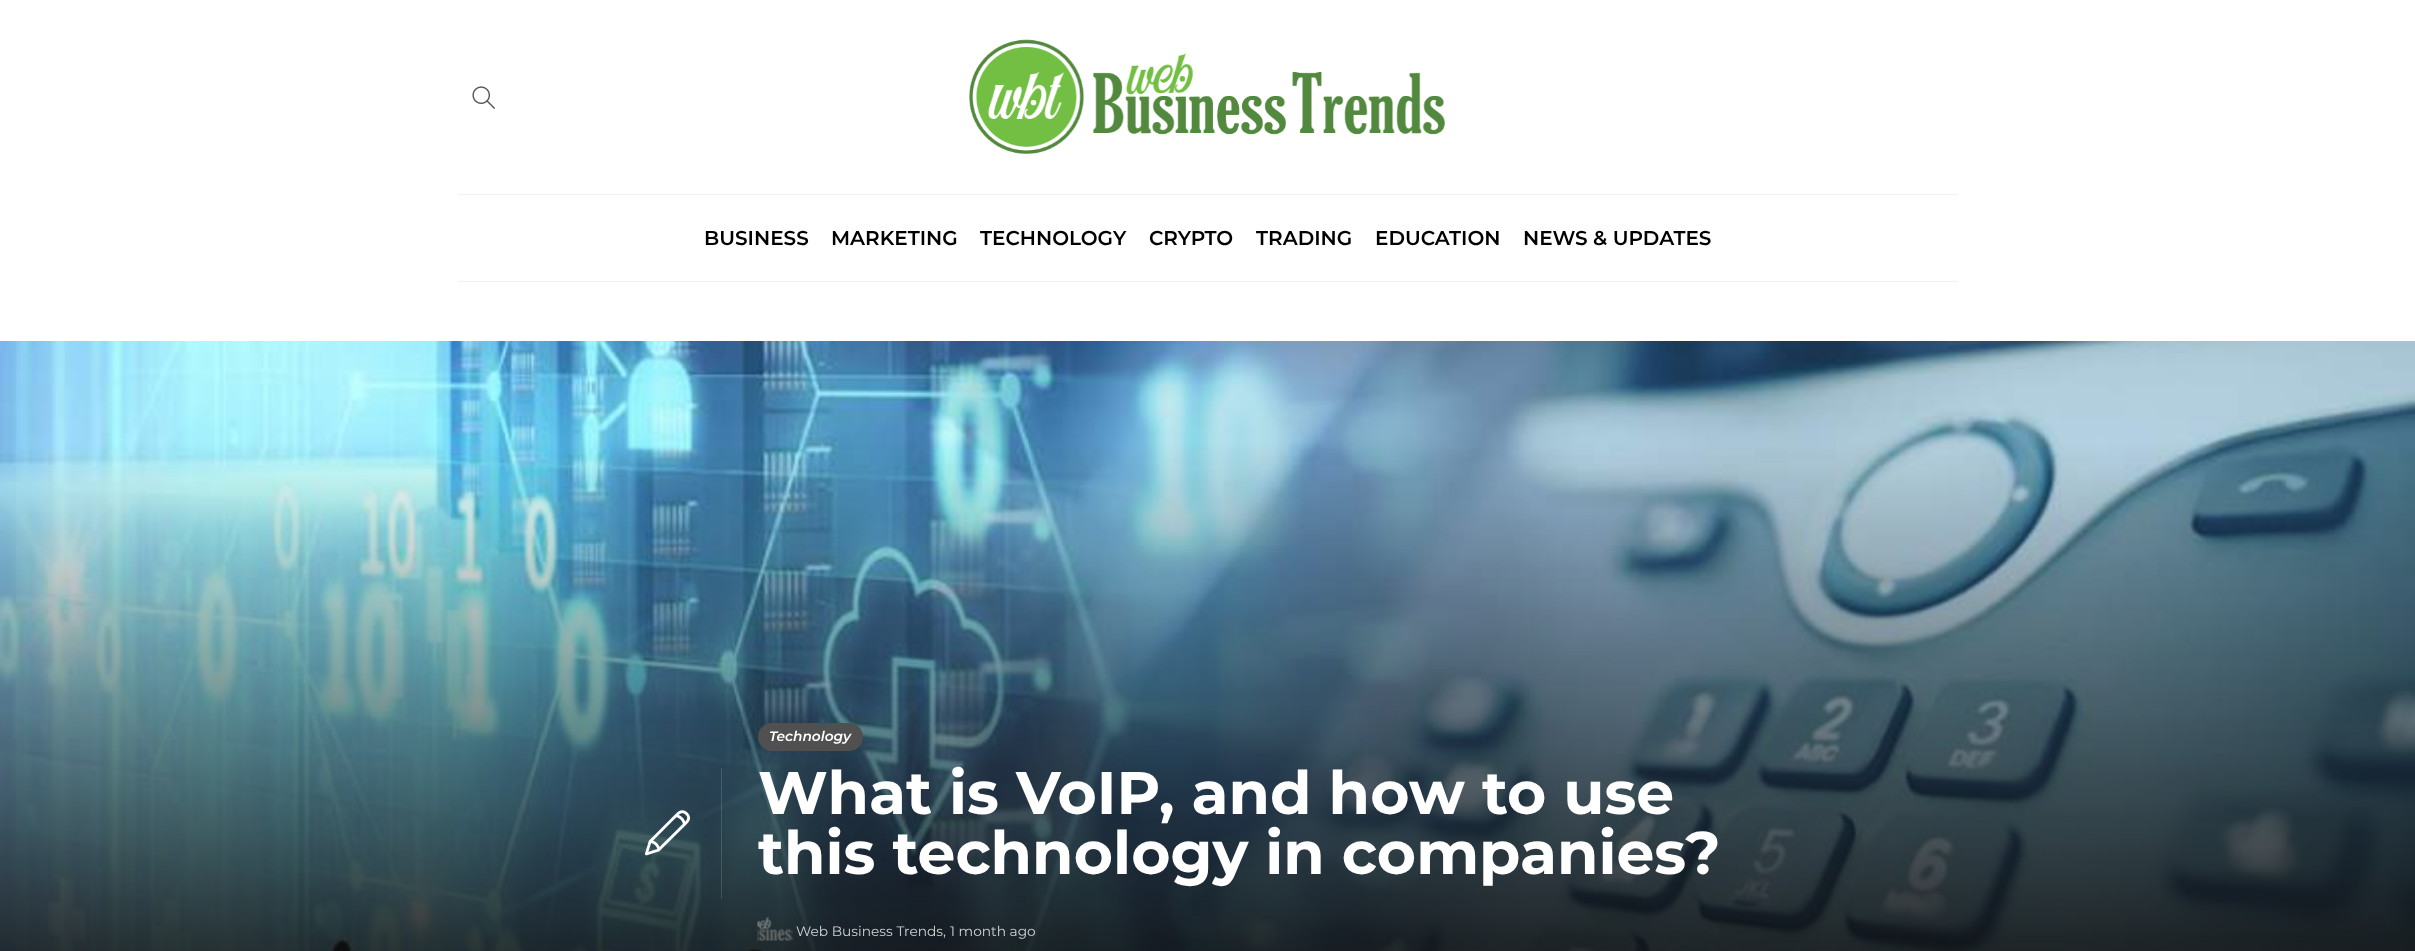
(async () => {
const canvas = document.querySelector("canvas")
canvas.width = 2415
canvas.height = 951
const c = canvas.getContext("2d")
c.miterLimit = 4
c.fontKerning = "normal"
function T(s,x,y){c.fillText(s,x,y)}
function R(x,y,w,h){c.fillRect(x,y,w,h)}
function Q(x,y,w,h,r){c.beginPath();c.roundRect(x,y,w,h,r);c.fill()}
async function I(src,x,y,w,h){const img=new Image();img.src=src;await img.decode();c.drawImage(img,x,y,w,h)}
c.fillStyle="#fff"
R(0,0,2415,951)
await I("1.png",472,86,23,23)
await I("2.png",969,39,476,115)
c.fillStyle="#f1f1f1"
R(458,194,1500,1)
R(458,281,1500,1)
c.font="600 20px Montserrat"
c.fillStyle="#000"
T("BUSINESS",704,245)
T("MARKETING",831,245)
T("TECHNOLOGY",980,245)
T("CRYPTO",1149,245)
T("TRADING",1256,245)
T("EDUCATION",1375,245)
T("NEWS & UPDATES",1523,245)
await I("3.png",0,341,2415,610)
c.fillStyle="#ffffff24"
R(721,768,1,131)
await I("4.png",645,810,45,46)
c.fillStyle="#515050"
Q(758,723,105,28,14)
c.font="italic 600 13.75px Montserrat"
c.fillStyle="#fff"
T("Technology",769,741)
c.font="bold 60px Montserrat"
T("What is VoIP, and how to use",758,814)
T("this technology in companies?",758,874)
await I("5.png",757,916,36,25)
c.font="13.75px Montserrat"
c.fillStyle="#d1d3d4"
T("Web Business Trends",796,936)
T(",",943,936)
T("1 month ago",950,936)
})()
